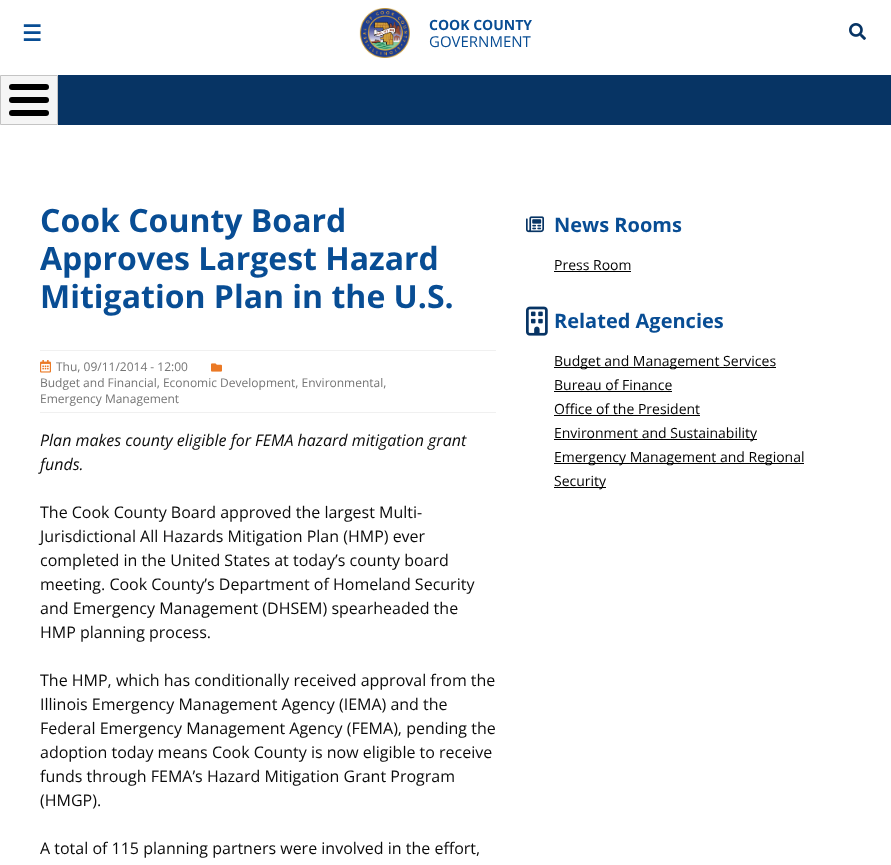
(async () => {
const canvas = document.querySelector("canvas")
canvas.width = 891
canvas.height = 865
const c = canvas.getContext("2d")
c.miterLimit = 4
c.fontKerning = "normal"
function T(s,x,y){c.fillText(s,x,y)}
function R(x,y,w,h){c.fillRect(x,y,w,h)}
function Q(x,y,w,h,r){c.beginPath();c.roundRect(x,y,w,h,r);c.fill()}
async function I(src,x,y,w,h){const img=new Image();img.src=src;await img.decode();c.drawImage(img,x,y,w,h)}
c.fillStyle="#fff"
R(0,0,891,865)
c.font="bold 22px DejaVu Sans"
c.fillStyle="#084d94"
T("☰",22,41)
await I("1.png",359,8,51,50)
c.font="bold 14px Open Sans"
T("COOK COUNTY",429,30)
c.font="15px Open Sans"
T("GOVERNMENT",429,47)
await I("2.png",849,23,17,17)
c.fillStyle="#073464"
R(58,75,833,50)
c.fillStyle="#f5f5f5"
c.beginPath()
c.rect(.5,75.5,57,49)
c.fill()
c.strokeStyle="#c4c4c4"
c.stroke()
c.fillStyle="#000"
Q(9,84,40,6,3)
Q(9,97,40,6,3)
Q(9,110,40,6,3)
c.font="bold 32px Open Sans"
c.fillStyle="#084d94"
T("Cook County Board",40,232)
T("Approves Largest Hazard",40,270)
T("Mitigation Plan in the U.S.",40,308)
c.fillStyle="#f0f0f0"
R(40,350,456,1)
R(40,412,456,1)
await I("3.png",40,360,11,13)
c.font="12px Open Sans"
c.fillStyle="#757575"
T("Thu, 09/11/2014 - 12:00",56,371)
await I("4.png",211,363,11,9)
T("Budget and Financial, Economic Development, Environmental,",40,387)
T("Emergency Management",40,403)
c.font="italic 16px Open Sans"
c.fillStyle="#0a0a0a"
T("Plan makes county eligible for FEMA hazard mitigation grant",40,446)
T("funds.",40,470)
c.font="16px Open Sans"
T("The Cook County Board approved the largest Multi-",40,518)
T("Jurisdictional All Hazards Mitigation Plan (HMP) ever",40,542)
T("completed in the United States at today’s county board",40,566)
T("meeting. Cook County’s Department of Homeland Security",40,590)
T("and Emergency Management (DHSEM) spearheaded the",40,614)
T("HMP planning process.",40,638)
T("The HMP, which has conditionally received approval from the",40,686)
T("Illinois Emergency Management Agency (IEMA) and the",40,710)
T("Federal Emergency Management Agency (FEMA), pending the",40,734)
T("adoption today means Cook County is now eligible to receive",40,758)
T("funds through FEMA’s Hazard Mitigation Grant Program",40,782)
T("(HMGP).",40,806)
T("A total of 115 planning partners were involved in the effort,",40,854)
await I("5.png",526,216,18,17)
c.font="bold 20px Open Sans"
c.fillStyle="#084d94"
T("News Rooms",554,232)
c.font="14px Open Sans"
c.fillStyle="#000"
T("Press Room",554,270)
R(554,271,77,1)
await I("6.png",526,306,22,30)
c.font="bold 20px Open Sans"
c.fillStyle="#084d94"
T("Related Agencies",554,328)
c.fillStyle="#000"
R(554,367,222,1)
c.font="14px Open Sans"
T("Budget and Management Services",554,366)
T("Bureau of Finance",554,390)
R(554,391,118,1)
T("Office of the President",554,414)
R(554,415,146,1)
R(554,439,203,1)
T("Environment and Sustainability",554,438)
R(554,463,250,1)
T("Emergency Management and Regional",554,462)
R(554,487,52,1)
T("Security",554,486)
})()
